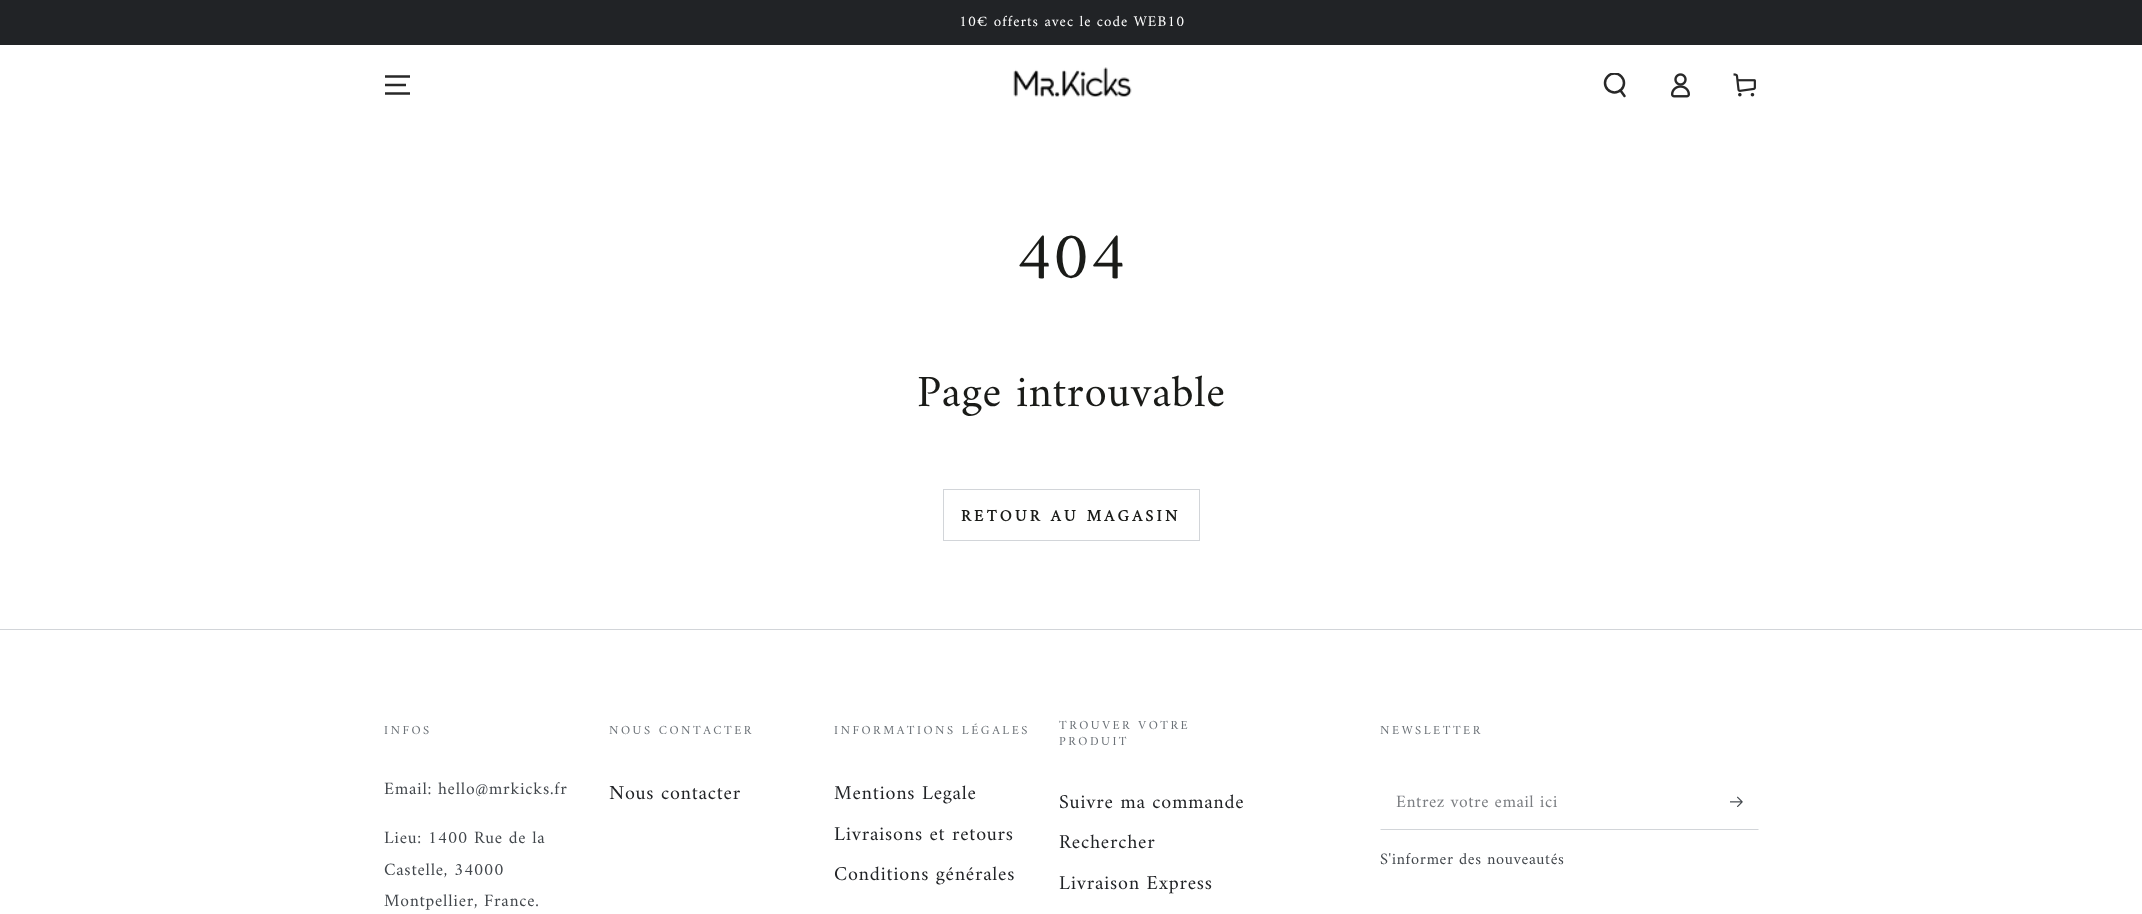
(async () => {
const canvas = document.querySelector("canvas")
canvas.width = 2142
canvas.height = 914
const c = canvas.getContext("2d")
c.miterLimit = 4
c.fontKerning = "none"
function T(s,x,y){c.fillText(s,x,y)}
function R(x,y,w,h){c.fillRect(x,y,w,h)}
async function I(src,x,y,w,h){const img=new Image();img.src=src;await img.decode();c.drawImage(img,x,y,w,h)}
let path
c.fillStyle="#fff"
R(0,0,2142,914)
c.fillStyle="#212326"
R(0,0,2142,45)
c.letterSpacing="1px"
c.font="15px Amiri"
c.fillStyle="#fff"
T("10€ offerts avec le code WEB10",959,26)
path = new Path2D("M385 93.5h25m-25-8.5h21m-21-8.5h25")
c.strokeStyle="#282828"
c.lineWidth=2.3
c.stroke(path)
await I("1.png",1013,67,119,30)
c.save()
c.beginPath()
c.rect(1603,73,25,25)
c.clip()
c.beginPath()
c.arc(1614.5,83,9.5,0,7)
c.lineWidth=2.5
c.stroke()
c.restore()
path = new Path2D("M1620.5 90.5l4 5.5")
c.lineWidth=2.5
c.lineCap="round"
c.stroke(path)
await I("2.png",1671,73,19,25)
await I("3.png",1733,73,23,24)
c.letterSpacing="0.7px"
c.font="68px Amiri"
c.fillStyle="#1a1b18"
T("404",1016,278)
c.font="45px Amiri"
T("Page introuvable",917,406)
c.strokeStyle="#d2d5d9"
c.lineWidth=1
c.strokeRect(943.5,489.5,256,51)
c.letterSpacing="3.25px"
c.font="bold 16.25px Amiri"
T("RETOUR AU MAGASIN",961,521)
c.fillStyle="#d2d5d9"
R(0,629,2142,1)
c.letterSpacing="2.5px"
c.font="12.5px Amiri"
c.fillStyle="#6b7177"
T("INFOS",384,734)
c.letterSpacing="0.75px"
c.font="17.5px Amiri"
c.fillStyle="#42474c"
T("Email: hello@mrkicks.fr",384,794)
T("Lieu: 1400 Rue de la",384,843)
T("Castelle, 34000",384,875)
T("Montpellier, France.",384,906)
c.letterSpacing="2.5px"
c.font="12.5px Amiri"
c.fillStyle="#6b7177"
T("NOUS CONTACTER",609,734)
c.letterSpacing="0.75px"
c.font="20px Amiri"
c.fillStyle="#212326"
T("Nous contacter",609,799)
c.letterSpacing="2.5px"
c.font="12.5px Amiri"
c.fillStyle="#6b7177"
T("INFORMATIONS LÉGALES",834,734)
c.letterSpacing="0.75px"
c.font="20px Amiri"
c.fillStyle="#212326"
T("Mentions Legale",834,799)
T("Livraisons et retours",834,840)
T("Conditions générales",834,880)
c.letterSpacing="2.5px"
c.font="12.5px Amiri"
c.fillStyle="#6b7177"
T("TROUVER VOTRE",1059,729)
T("PRODUIT",1059,745)
c.letterSpacing="0.75px"
c.font="20px Amiri"
c.fillStyle="#212326"
T("Suivre ma commande",1059,808)
T("Rechercher",1059,848)
T("Livraison Express",1059,889)
c.letterSpacing="2.5px"
c.font="12.5px Amiri"
c.fillStyle="#6b7177"
T("NEWSLETTER",1380,734)
c.fillStyle="#d2d5d9"
path = new Path2D("M1759 830h-379l1-1h377z")
c.fill(path)
c.letterSpacing="0.5px"
c.font="17.5px Amiri"
c.fillStyle="#7b7e82"
T("Entrez votre email ici",1396,807)
await I("4.png",1730,796,13,11)
c.letterSpacing="0.6px"
c.font="16.25px Amiri"
c.fillStyle="#42474c"
T("S'informer des nouveautés",1380,864)
})()
